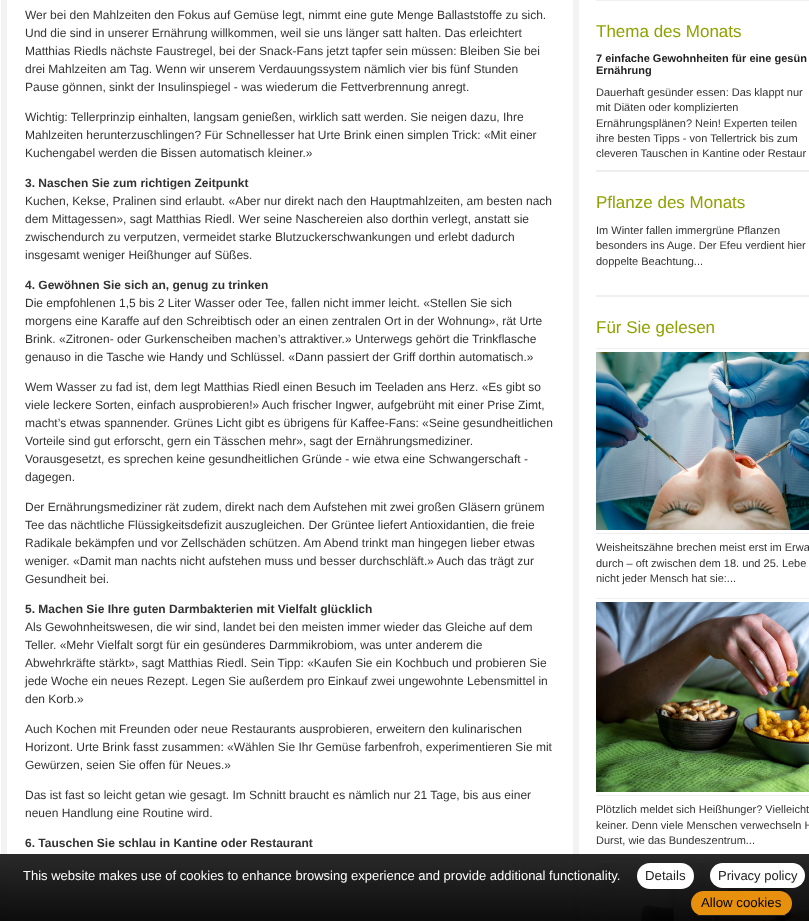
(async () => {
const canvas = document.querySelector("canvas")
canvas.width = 809
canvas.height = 921
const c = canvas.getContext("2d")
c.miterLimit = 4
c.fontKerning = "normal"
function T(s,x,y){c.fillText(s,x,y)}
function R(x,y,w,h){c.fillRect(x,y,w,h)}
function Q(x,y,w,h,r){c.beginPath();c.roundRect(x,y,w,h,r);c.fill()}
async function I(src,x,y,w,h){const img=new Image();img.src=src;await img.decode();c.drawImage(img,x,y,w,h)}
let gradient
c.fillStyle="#fff"
R(0,0,809,921)
await I("1.png",1,0,578,921)
c.font="12px Liberation Sans"
c.fillStyle="#333"
T("Wer bei den Mahlzeiten den Fokus auf Gemüse legt, nimmt eine gute Menge Ballaststoffe zu sich.",25,19)
T("Und die sind in unserer Ernährung willkommen, weil sie uns länger satt halten. Das erleichtert",25,37)
T("Matthias Riedls nächste Faustregel, bei der Snack-Fans jetzt tapfer sein müssen: Bleiben Sie bei",25,55)
T("drei Mahlzeiten am Tag. Wenn wir unserem Verdauungssystem nämlich vier bis fünf Stunden",25,73)
T("Pause gönnen, sinkt der Insulinspiegel - was wiederum die Fettverbrennung anregt.",25,91)
T("Wichtig: Tellerprinzip einhalten, langsam genießen, wirklich satt werden. Sie neigen dazu, Ihre",25,121)
T("Mahlzeiten herunterzuschlingen? Für Schnellesser hat Urte Brink einen simplen Trick: «Mit einer",25,139)
T("Kuchengabel werden die Bissen automatisch kleiner.»",25,157)
c.font="bold 12px Liberation Sans"
T("3. Naschen Sie zum richtigen Zeitpunkt",25,187)
c.font="12px Liberation Sans"
T("Kuchen, Kekse, Pralinen sind erlaubt. «Aber nur direkt nach den Hauptmahlzeiten, am besten nach",25,205)
T("dem Mittagessen», sagt Matthias Riedl. Wer seine Naschereien also dorthin verlegt, anstatt sie",25,223)
T("zwischendurch zu verputzen, vermeidet starke Blutzuckerschwankungen und erlebt dadurch",25,241)
T("insgesamt weniger Heißhunger auf Süßes.",25,259)
c.font="bold 12px Liberation Sans"
T("4. Gewöhnen Sie sich an, genug zu trinken",25,289)
c.font="12px Liberation Sans"
T("Die empfohlenen 1,5 bis 2 Liter Wasser oder Tee, fallen nicht immer leicht. «Stellen Sie sich",25,307)
T("morgens eine Karaffe auf den Schreibtisch oder an einen zentralen Ort in der Wohnung», rät Urte",25,325)
T("Brink. «Zitronen- oder Gurkenscheiben machen’s attraktiver.» Unterwegs gehört die Trinkflasche",25,343)
T("genauso in die Tasche wie Handy und Schlüssel. «Dann passiert der Griff dorthin automatisch.»",25,361)
T("Wem Wasser zu fad ist, dem legt Matthias Riedl einen Besuch im Teeladen ans Herz. «Es gibt so",25,391)
T("viele leckere Sorten, einfach ausprobieren!» Auch frischer Ingwer, aufgebrüht mit einer Prise Zimt,",25,409)
T("macht’s etwas spannender. Grünes Licht gibt es übrigens für Kaffee-Fans: «Seine gesundheitlichen",25,427)
T("Vorteile sind gut erforscht, gern ein Tässchen mehr», sagt der Ernährungsmediziner.",25,445)
T("Vorausgesetzt, es sprechen keine gesundheitlichen Gründe - wie etwa eine Schwangerschaft -",25,463)
T("dagegen.",25,481)
T("Der Ernährungsmediziner rät zudem, direkt nach dem Aufstehen mit zwei großen Gläsern grünem",25,511)
T("Tee das nächtliche Flüssigkeitsdefizit auszugleichen. Der Grüntee liefert Antioxidantien, die freie",25,529)
T("Radikale bekämpfen und vor Zellschäden schützen. Am Abend trinkt man hingegen lieber etwas",25,547)
T("weniger. «Damit man nachts nicht aufstehen muss und besser durchschläft.» Auch das trägt zur",25,565)
T("Gesundheit bei.",25,583)
c.font="bold 12px Liberation Sans"
T("5. Machen Sie Ihre guten Darmbakterien mit Vielfalt glücklich",25,613)
c.font="12px Liberation Sans"
T("Als Gewohnheitswesen, die wir sind, landet bei den meisten immer wieder das Gleiche auf dem",25,631)
T("Teller. «Mehr Vielfalt sorgt für ein gesünderes Darmmikrobiom, was unter anderem die",25,649)
T("Abwehrkräfte stärkt», sagt Matthias Riedl. Sein Tipp: «Kaufen Sie ein Kochbuch und probieren Sie",25,667)
T("jede Woche ein neues Rezept. Legen Sie außerdem pro Einkauf zwei ungewohnte Lebensmittel in",25,685)
T("den Korb.»",25,703)
T("Auch Kochen mit Freunden oder neue Restaurants ausprobieren, erweitern den kulinarischen",25,733)
T("Horizont. Urte Brink fasst zusammen: «Wählen Sie Ihr Gemüse farbenfroh, experimentieren Sie mit",25,751)
T("Gewürzen, seien Sie offen für Neues.»",25,769)
T("Das ist fast so leicht getan wie gesagt. Im Schnitt braucht es nämlich nur 21 Tage, bis aus einer",25,799)
T("neuen Handlung eine Routine wird.",25,817)
c.font="bold 12px Liberation Sans"
T("6. Tauschen Sie schlau in Kantine oder Restaurant",25,847)
c.fillStyle="#efefef"
R(596,0,213,1)
c.font="17px Liberation Sans"
c.fillStyle="#90a201"
T("Thema des Monats",596,37)
c.fillStyle="#efefef"
R(596,170,213,2)
c.font="bold 11px Liberation Sans"
c.fillStyle="#222"
T("7 einfache Gewohnheiten für eine gesün",596,62)
T("Ernährung",596,74)
c.font="11px Liberation Sans"
c.fillStyle="#333"
T("Dauerhaft gesünder essen: Das klappt nur",596,96)
T("mit Diäten oder komplizierten",596,111)
T("Ernährungsplänen? Nein! Experten teilen",596,127)
T("ihre besten Tipps - von Tellertrick bis zum",596,142)
T("cleveren Tauschen in Kantine oder Restaur",596,157)
c.font="17px Liberation Sans"
c.fillStyle="#90a201"
T("Pflanze des Monats",596,208)
c.fillStyle="#efefef"
R(596,295,213,2)
c.font="11px Liberation Sans"
c.fillStyle="#333"
T("Im Winter fallen immergrüne Pflanzen",596,234)
T("besonders ins Auge. Der Efeu verdient hier",596,249)
T("doppelte Beachtung...",596,265)
c.font="17px Liberation Sans"
c.fillStyle="#90a201"
T("Für Sie gelesen",596,333)
c.save()
c.beginPath()
c.rect(596,0,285,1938)
c.clip()
c.strokeStyle="#efefef"
c.strokeRect(588.5,348.5,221,185)
c.restore()
await I("2.png",596,352,213,178)
c.font="11px Liberation Sans"
c.fillStyle="#333"
T("Weisheitszähne brechen meist erst im Erwa",596,551)
T("durch – oft zwischen dem 18. und 25. Lebe",596,567)
T("nicht jeder Mensch hat sie:...",596,582)
c.save()
c.beginPath()
c.rect(596,0,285,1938)
c.clip()
c.strokeStyle="#efefef"
c.strokeRect(588.5,598.5,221,197)
c.restore()
await I("3.png",596,602,213,190)
T("Plötzlich meldet sich Heißhunger? Vielleicht",596,813)
T("keiner. Denn viele Menschen verwechseln H",596,829)
T("Durst, wie das Bundeszentrum...",596,844)
c.save()
c.beginPath()
c.rect(596,0,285,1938)
c.clip()
c.strokeStyle="#efefef"
c.strokeRect(588.5,859.5,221,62)
c.restore()
await I("4.png",596,863,213,58)
gradient = c.createLinearGradient(408,854,408,921)
gradient.addColorStop(0,"#1e1e1ef2")
gradient.addColorStop(1,"#000000f2")
c.fillStyle = gradient
R(0,854,809,67)
c.font="13px Liberation Sans"
c.fillStyle="#fff"
T("This website makes use of cookies to enhance browsing experience and provide additional functionality.",23,880)
Q(637,863,57,26,13)
c.font="13.25px Liberation Sans"
c.fillStyle="#222"
T("Details",645,880)
c.fillStyle="#fff"
Q(710,863,95,25,12.5)
c.font="13px Liberation Sans"
c.fillStyle="#222"
T("Privacy policy",718,880)
c.fillStyle="#e6900e"
Q(691,891,101,25,12.5)
c.fillStyle="#222"
R(697,915,89,1)
c.font="13.25px Liberation Sans"
c.fillStyle="#000"
T("Allow cookies",701,907)
})()
